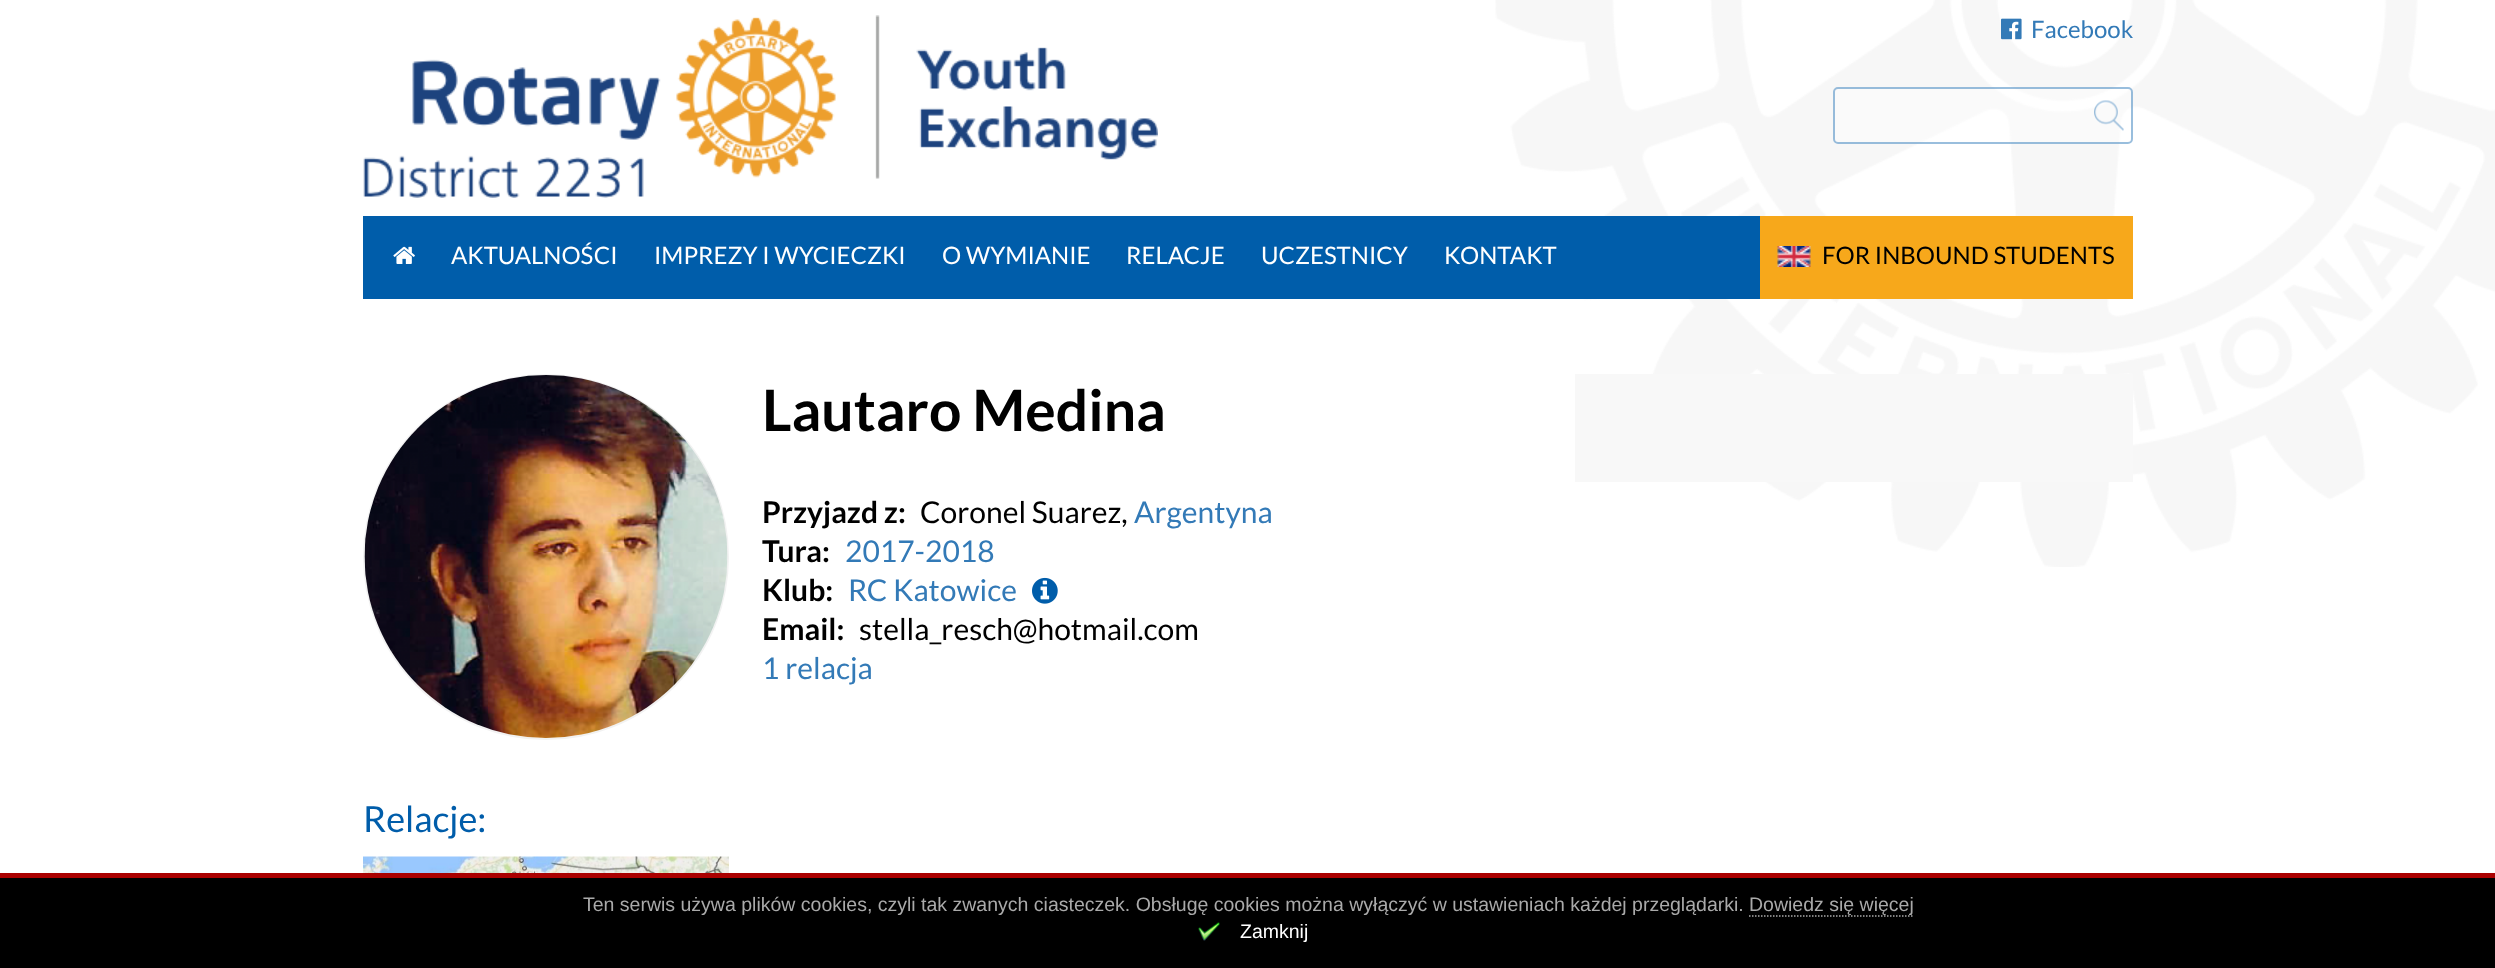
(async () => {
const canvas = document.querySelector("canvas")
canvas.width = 2495
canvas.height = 968
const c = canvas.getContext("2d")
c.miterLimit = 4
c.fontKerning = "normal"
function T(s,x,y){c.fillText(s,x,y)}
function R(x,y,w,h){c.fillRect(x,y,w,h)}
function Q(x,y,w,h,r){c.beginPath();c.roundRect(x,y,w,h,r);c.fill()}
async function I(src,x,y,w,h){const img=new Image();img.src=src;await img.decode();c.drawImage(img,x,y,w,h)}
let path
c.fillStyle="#fff"
R(0,0,2495,968)
await I("1.png",1495,0,1000,567)
await I("2.png",363,15,795,183)
c.fillStyle="#ffffff66"
Q(1833,87,300,57,5)
await I("3.png",2094,100,30,31)
c.beginPath()
c.roundRect(1834,88,298,55,4)
c.strokeStyle="#005daa66"
c.lineWidth=2
c.stroke()
await I("4.png",2001,18,21,22)
c.font="24px Lato"
c.fillStyle="#337ab7"
T("Facebook",2031,38)
c.fillStyle="#005daa"
R(363,216,1397,83)
await I("5.png",393,246,22,18)
c.fillStyle="#fff"
T("AKTUALNOŚCI",451,264)
T("IMPREZY I WYCIECZKI",654,264)
T("O WYMIANIE",942,264)
T("RELACJE",1126,264)
T("UCZESTNICY",1261,264)
T("KONTAKT",1444,264)
c.fillStyle="#f7a81b"
R(1760,216,373,83)
await I("6.png",1777,246,34,21)
c.fillStyle="#000"
T("FOR INBOUND STUDENTS",1822,264)
c.beginPath()
c.arc(546,557,182,0,7)
c.strokeStyle="#f2f2f2"
c.stroke()
await I("7.png",364,375,364,363)
c.font="bold 57px Lato"
T("Lautaro Medina",762,431)
c.font="bold 30px Lato"
T("Przyjazd z:",762,523)
c.font="30px Lato"
T("Coronel Suarez,",920,523)
c.fillStyle="#337ab7"
T("Argentyna",1134,523)
c.font="bold 30px Lato"
c.fillStyle="#000"
T("Tura:",762,562)
c.font="30px Lato"
c.fillStyle="#337ab7"
T("2017-2018",845,562)
c.font="bold 30px Lato"
c.fillStyle="#000"
T("Klub:",762,601)
c.font="30px Lato"
c.fillStyle="#337ab7"
T("RC Katowice",848,601)
await I("8.png",1032,577,26,27)
c.font="bold 30px Lato"
c.fillStyle="#000"
T("Email:",762,640)
c.font="30px Lato"
T("stella_resch@hotmail.com",859,640)
c.fillStyle="#337ab7"
T("1 relacja",762,679)
c.font="36px Lato"
c.fillStyle="#005daa"
T("Relacje:",363,832)
await I("9.png",363,856,366,17)
c.fillStyle="#f8f8f8"
R(1575,374,558,108)
c.fillStyle="#000"
R(0,878,2495,90)
c.fillStyle="#a00"
R(0,873,2495,5)
c.font="19.5px Liberation Sans"
c.fillStyle="#aaa"
T("Ten serwis używa plików cookies, czyli tak zwanych ciasteczek. Obsługę cookies można wyłączyć w ustawieniach każdej przeglądarki.",583,911)
path = new Path2D("M1749 916h165")
c.strokeStyle="#aaa"
c.lineWidth=1.5
c.setLineDash([1.5,1.5])
c.stroke(path)
T("Dowiedz się więcej",1749,911)
await I("10.png",1198,922,22,19)
c.fillStyle="#fff"
T("Zamknij",1240,938)
})()
